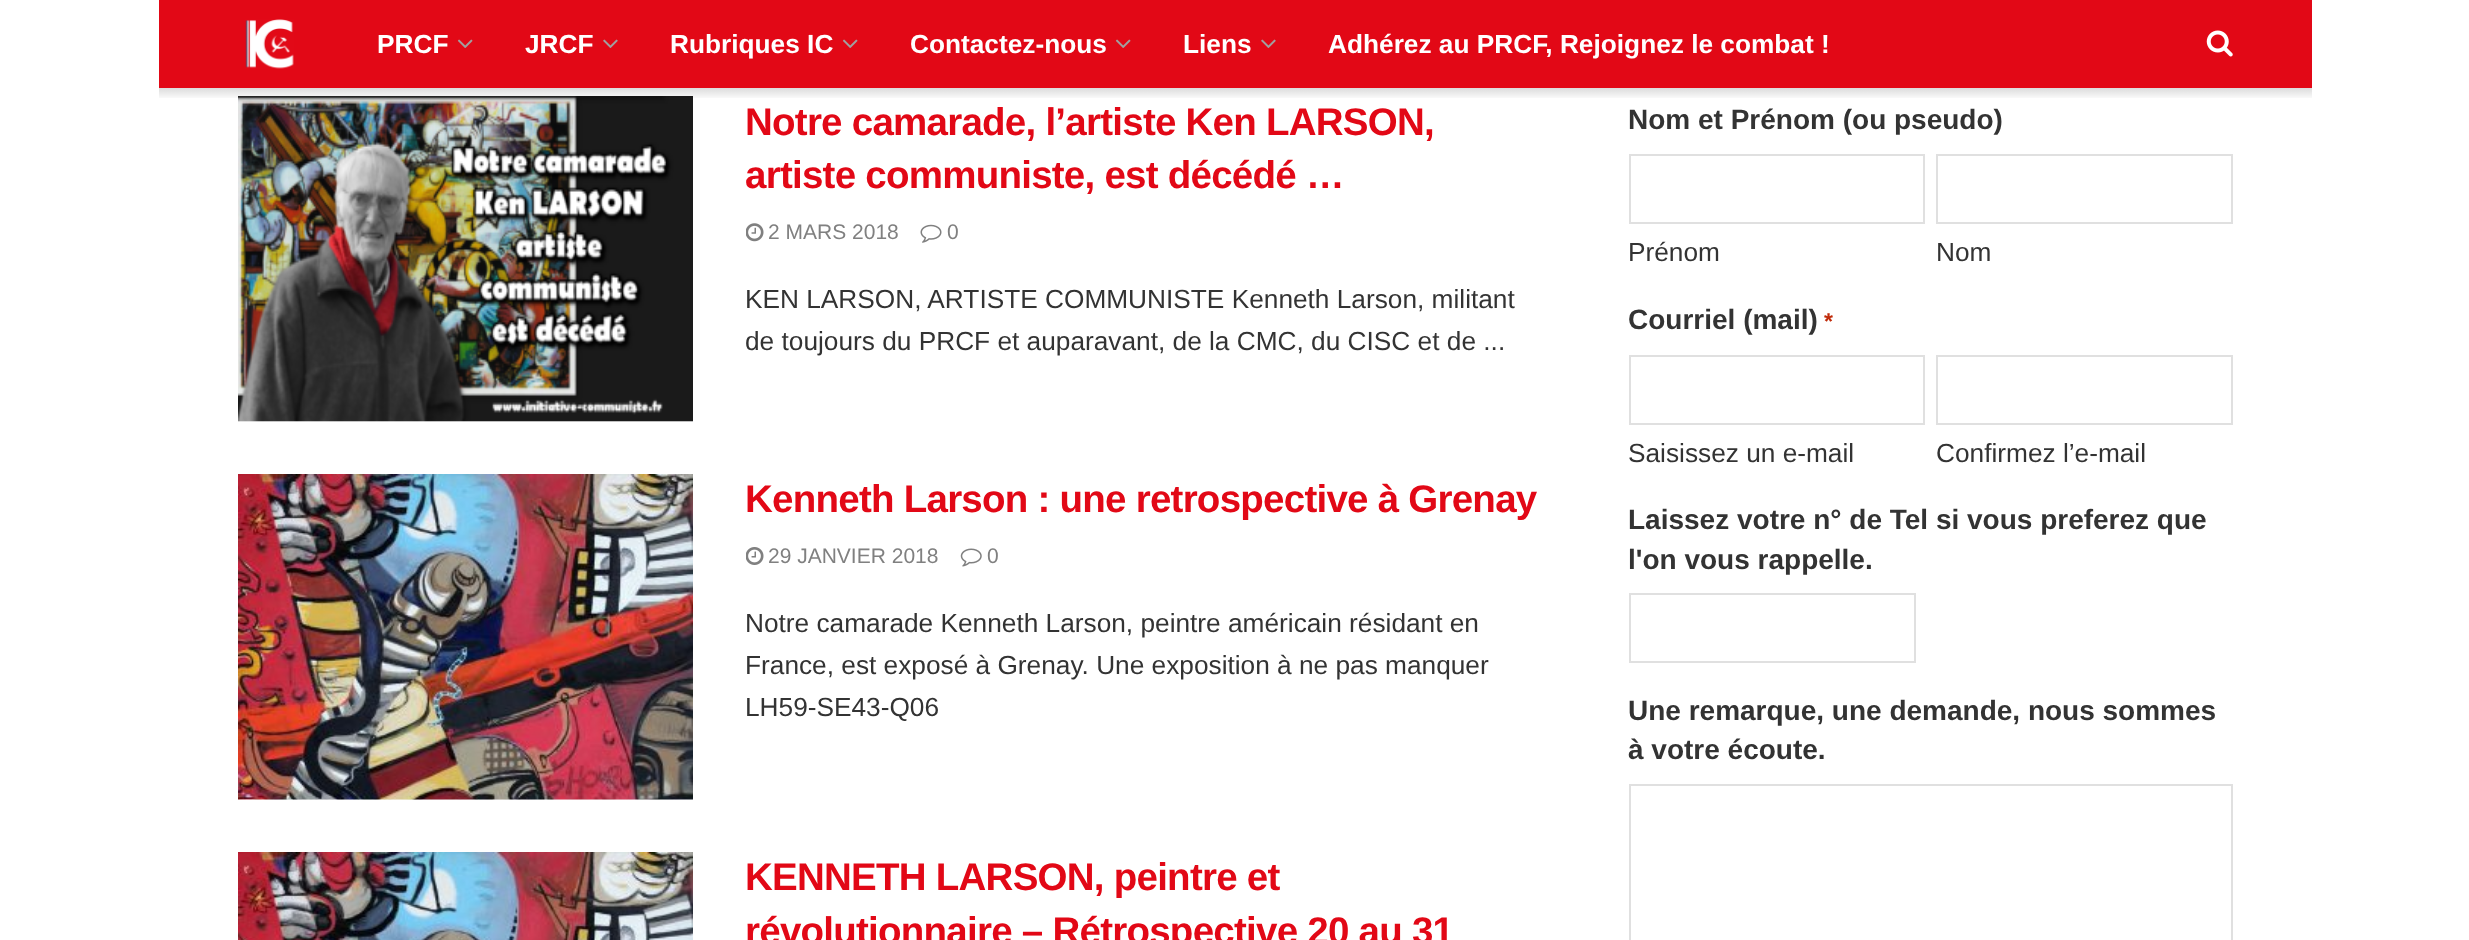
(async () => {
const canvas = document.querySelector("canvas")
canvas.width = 2469
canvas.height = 940
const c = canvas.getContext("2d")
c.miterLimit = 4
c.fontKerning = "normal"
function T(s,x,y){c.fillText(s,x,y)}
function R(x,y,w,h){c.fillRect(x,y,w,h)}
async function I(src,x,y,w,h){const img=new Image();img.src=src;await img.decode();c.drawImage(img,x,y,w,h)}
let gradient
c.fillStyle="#fff"
R(0,0,2469,940)
c.fillStyle="#e20816"
R(159,0,2153,88)
await I("1.png",245,19,49,50)
c.font="bold 26.25px Liberation Sans"
c.fillStyle="#fff"
T("PRCF",377,53)
await I("2.png",457,39,16,9)
T("JRCF",525,53)
await I("3.png",603,39,15,9)
T("Rubriques IC",670,53)
await I("2.png",842,39,16,9)
T("Contactez-nous",910,53)
await I("2.png",1115,39,16,9)
T("Liens",1183,53)
await I("3.png",1261,39,15,9)
T("Adhérez au PRCF, Rejoignez le combat !",1328,53)
await I("4.png",2206,30,27,27)
c.fillStyle="#f7f7f7"
R(238,421,455,1)
await I("5.png",238,96,455,326)
gradient = c.createLinearGradient(1236,87,1236,100)
gradient.addColorStop(0,"#00000026")
gradient.addColorStop(1,"#00000000")
c.fillStyle = gradient
R(159,88,2153,10)
c.letterSpacing="-0.75px"
c.font="bold 38.5px Liberation Sans"
c.fillStyle="#e20816"
T("Notre camarade, l’artiste Ken LARSON,",745,135)
c.save()
c.beginPath()
c.rect(746,96,805,266)
c.clip()
T("artiste communiste, est décédé …",745,188)
c.restore()
await I("6.png",746,223,18,19)
c.letterSpacing="0px"
c.font="21px Liberation Sans"
c.fillStyle="#808080"
T("2 MARS 2018",768,239)
await I("7.png",920,224,22,19)
T("0",947,239)
c.font="26.25px Liberation Sans"
c.fillStyle="#333"
T("KEN LARSON, ARTISTE COMMUNISTE Kenneth Larson, militant",745,308)
c.save()
c.beginPath()
c.rect(746,96,805,266)
c.clip()
T("de toujours du PRCF et auparavant, de la CMC, du CISC et de ...",745,350)
c.restore()
c.fillStyle="#f7f7f7"
R(238,799,455,1)
await I("8.png",238,474,455,326)
c.letterSpacing="-0.75px"
c.font="bold 38.5px Liberation Sans"
c.fillStyle="#e20816"
T("Kenneth Larson : une retrospective à Grenay",745,512)
await I("9.png",746,547,18,18)
c.letterSpacing="0px"
c.font="21px Liberation Sans"
c.fillStyle="#808080"
T("29 JANVIER 2018",768,563)
await I("10.png",960,548,22,19)
T("0",987,563)
c.font="26.25px Liberation Sans"
c.fillStyle="#333"
T("Notre camarade Kenneth Larson, peintre américain résidant en",745,632)
T("France, est exposé à Grenay. Une exposition à ne pas manquer",745,674)
T("LH59-SE43-Q06",745,716)
await I("11.png",238,852,455,88)
c.letterSpacing="-0.75px"
c.font="bold 38.5px Liberation Sans"
c.fillStyle="#e20816"
T("KENNETH LARSON, peintre et",745,890)
T("révolutionnaire – Rétrospective 20 au 31",745,944)
c.letterSpacing="0px"
c.font="bold 28px Liberation Sans"
c.fillStyle="#333"
T("Nom et Prénom (ou pseudo)",1628,129)
c.strokeStyle="#e0e0e0"
c.lineWidth=2
c.strokeRect(1630,155,294,68)
c.font="26.25px Liberation Sans"
T("Prénom",1628,261)
c.strokeRect(1937,155,295,68)
T("Nom",1936,261)
c.font="bold 28px Liberation Sans"
T("Courriel (mail)",1628,329)
c.font="bold 23px Liberation Sans"
c.fillStyle="#c02b0a"
T("*",1824,329)
c.strokeRect(1630,356,294,68)
c.font="26.25px Liberation Sans"
c.fillStyle="#333"
T("Saisissez un e-mail",1628,462)
c.strokeRect(1937,356,295,68)
T("Confirmez l’e-mail",1936,462)
c.font="bold 28px Liberation Sans"
T("Laissez votre n° de Tel si vous preferez que",1628,529)
T("l'on vous rappelle.",1628,569)
c.strokeRect(1630,594,285,68)
T("Une remarque, une demande, nous sommes",1628,720)
T("à votre écoute.",1628,759)
c.strokeRect(1630,785,602,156)
})()
